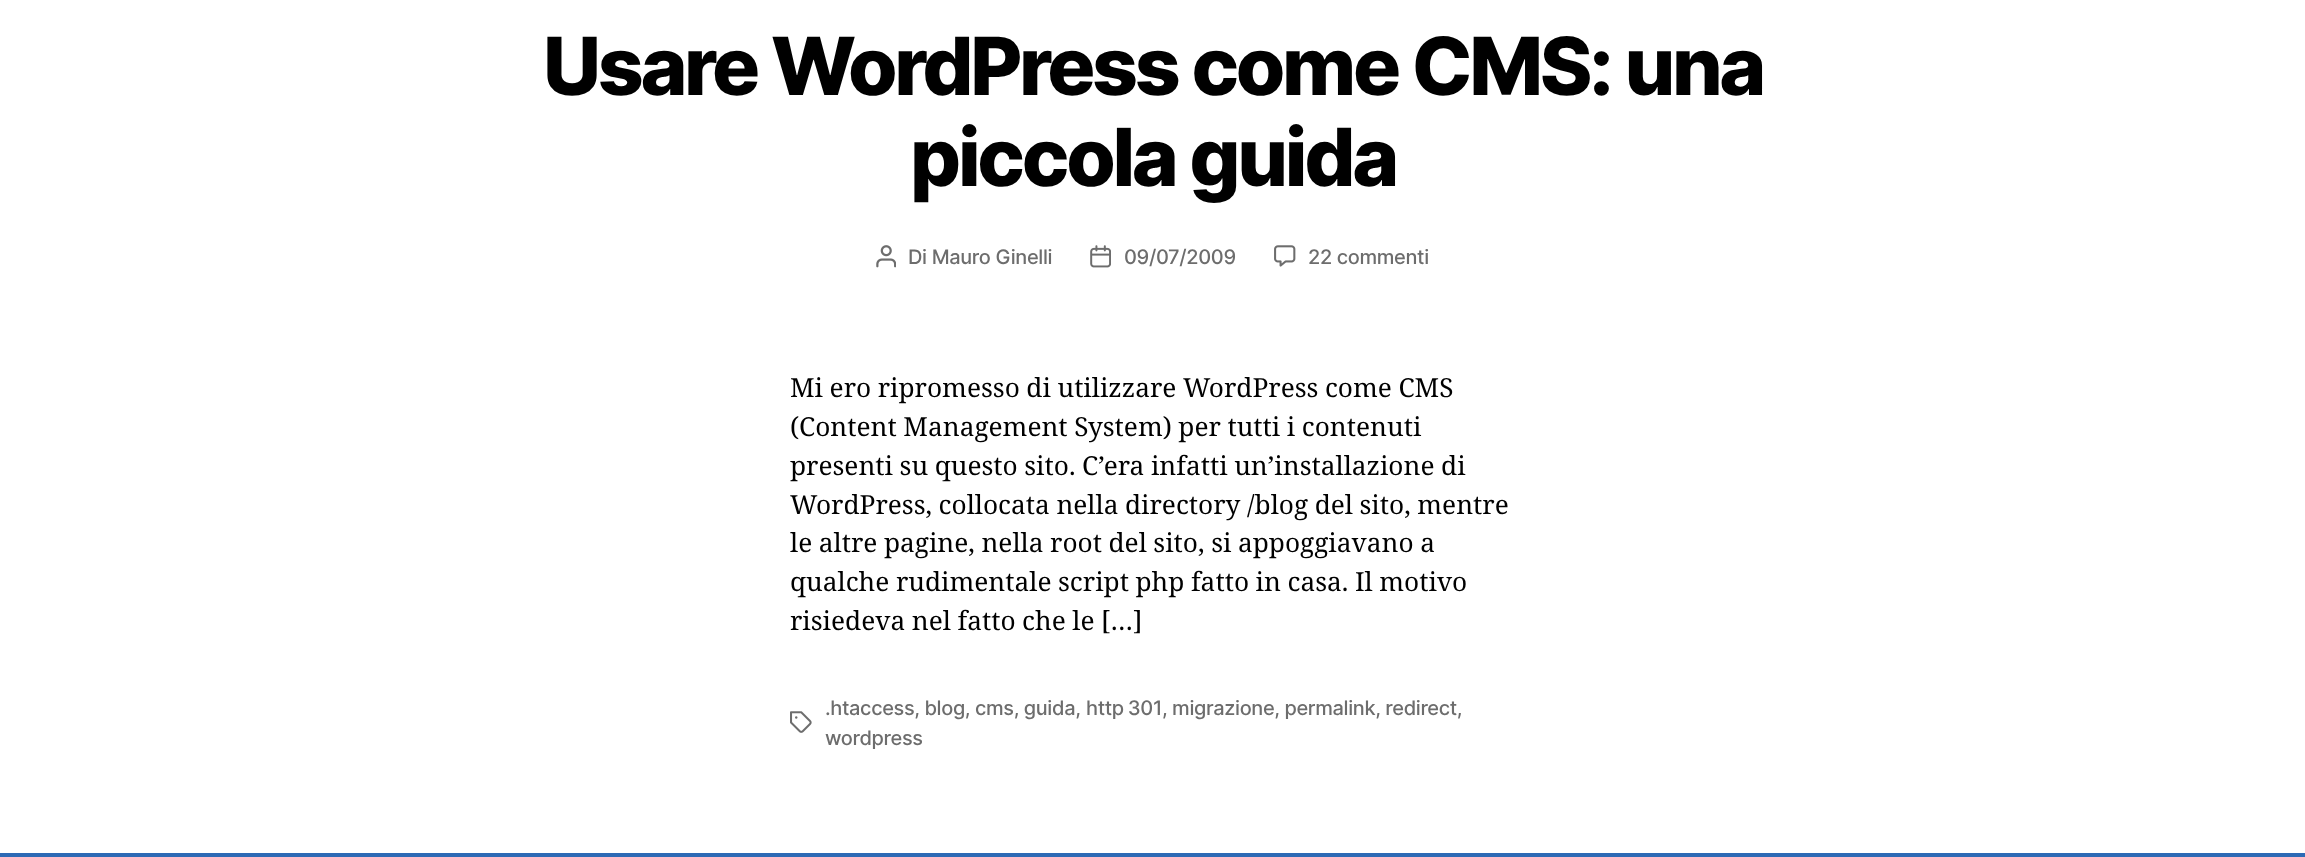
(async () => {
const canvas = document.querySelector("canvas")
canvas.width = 2305
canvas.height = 857
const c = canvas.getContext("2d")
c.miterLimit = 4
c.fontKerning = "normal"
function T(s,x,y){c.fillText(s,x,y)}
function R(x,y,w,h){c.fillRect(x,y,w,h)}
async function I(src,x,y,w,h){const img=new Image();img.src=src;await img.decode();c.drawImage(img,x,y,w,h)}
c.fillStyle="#fff"
R(0,0,2305,857)
c.letterSpacing="-3.3px"
c.font="800 80px Inter"
c.fillStyle="#000"
T("Usare WordPress come CMS: una",543,95)
T("piccola guida",910,186)
await I("1.png",876,245,20,23)
c.letterSpacing="-0.35px"
c.font="500 20px Inter"
c.fillStyle="#6d6d6d"
T("Di Mauro Ginelli",908,264)
await I("2.png",1090,245,21,23)
T("09/07/2009",1124,264)
await I("3.png",1274,245,22,22)
T("22 commenti",1308,264)
c.letterSpacing="0px"
c.wordSpacing="-0.25px"
c.font="26.25px Noto Serif"
c.fillStyle="#000"
T("Mi ero ripromesso di utilizzare WordPress come CMS",790,397)
T("(Content Management System) per tutti i contenuti",790,436)
T("presenti su questo sito. C’era infatti un’installazione di",790,475)
T("WordPress, collocata nella directory /blog del sito, mentre",790,514)
T("le altre pagine, nella root del sito, si appoggiavano a",790,552)
T("qualche rudimentale script php fatto in casa. Il motivo",790,591)
T("risiedeva nel fatto che le […]",790,630)
await I("4.png",790,711,22,22)
c.letterSpacing="-0.35px"
c.wordSpacing="0px"
c.font="500 20px Inter"
c.fillStyle="#6d6d6d"
T(".htaccess, blog, cms, guida,",825,715)
c.wordSpacing="-1px"
T("http 301",1086,715)
c.wordSpacing="0px"
T(", migrazione, permalink, redirect,",1162,715)
T("wordpress",825,745)
c.fillStyle="#2d6ab5"
R(0,853,2305,4)
})()
